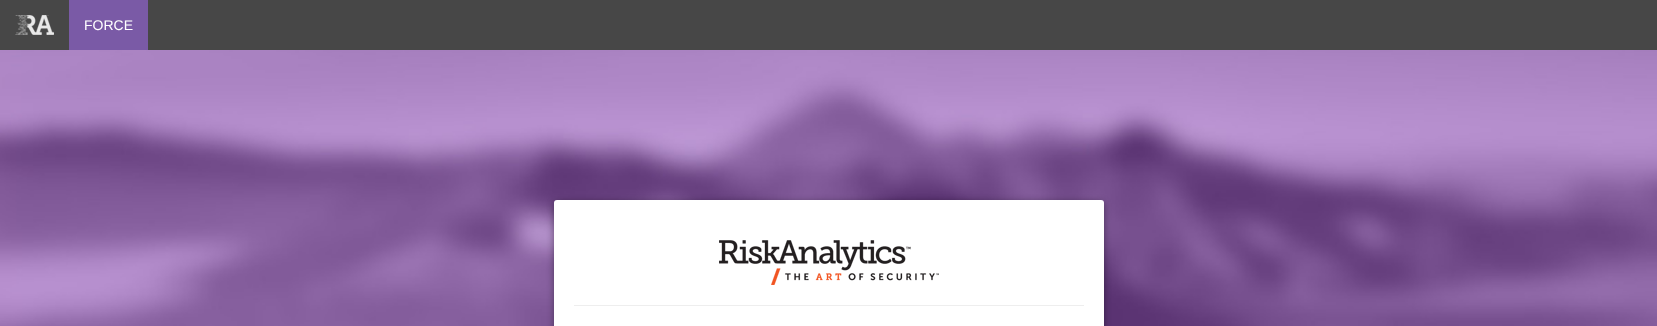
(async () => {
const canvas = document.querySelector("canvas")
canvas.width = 1657
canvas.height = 326
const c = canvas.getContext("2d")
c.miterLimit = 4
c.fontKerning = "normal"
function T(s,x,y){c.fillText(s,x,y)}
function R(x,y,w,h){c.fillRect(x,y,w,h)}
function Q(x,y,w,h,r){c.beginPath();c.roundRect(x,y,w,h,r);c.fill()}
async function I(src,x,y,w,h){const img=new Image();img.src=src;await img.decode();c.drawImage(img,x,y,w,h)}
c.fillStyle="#fff"
R(0,0,1657,326)
c.fillStyle="#474747"
R(0,0,1657,50)
await I("1.png",15,15,39,20)
c.fillStyle="#7a5aa6"
R(69,0,79,50)
c.font="14px Liberation Sans"
c.fillStyle="#fff"
T("FORCE",84,30)
await I("2.png",0,50,1657,276)
c.fillStyle="#00000066"
c.filter="blur(3.5px)"
c.beginPath()
c.roundRect(554,202,550,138,3)
c.fill()
c.filter="none"
c.fillStyle="#fff"
Q(554,200,550,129,3)
await I("3.png",719,240,220,45)
c.fillStyle="#eee"
R(574,305,510,1)
})()
